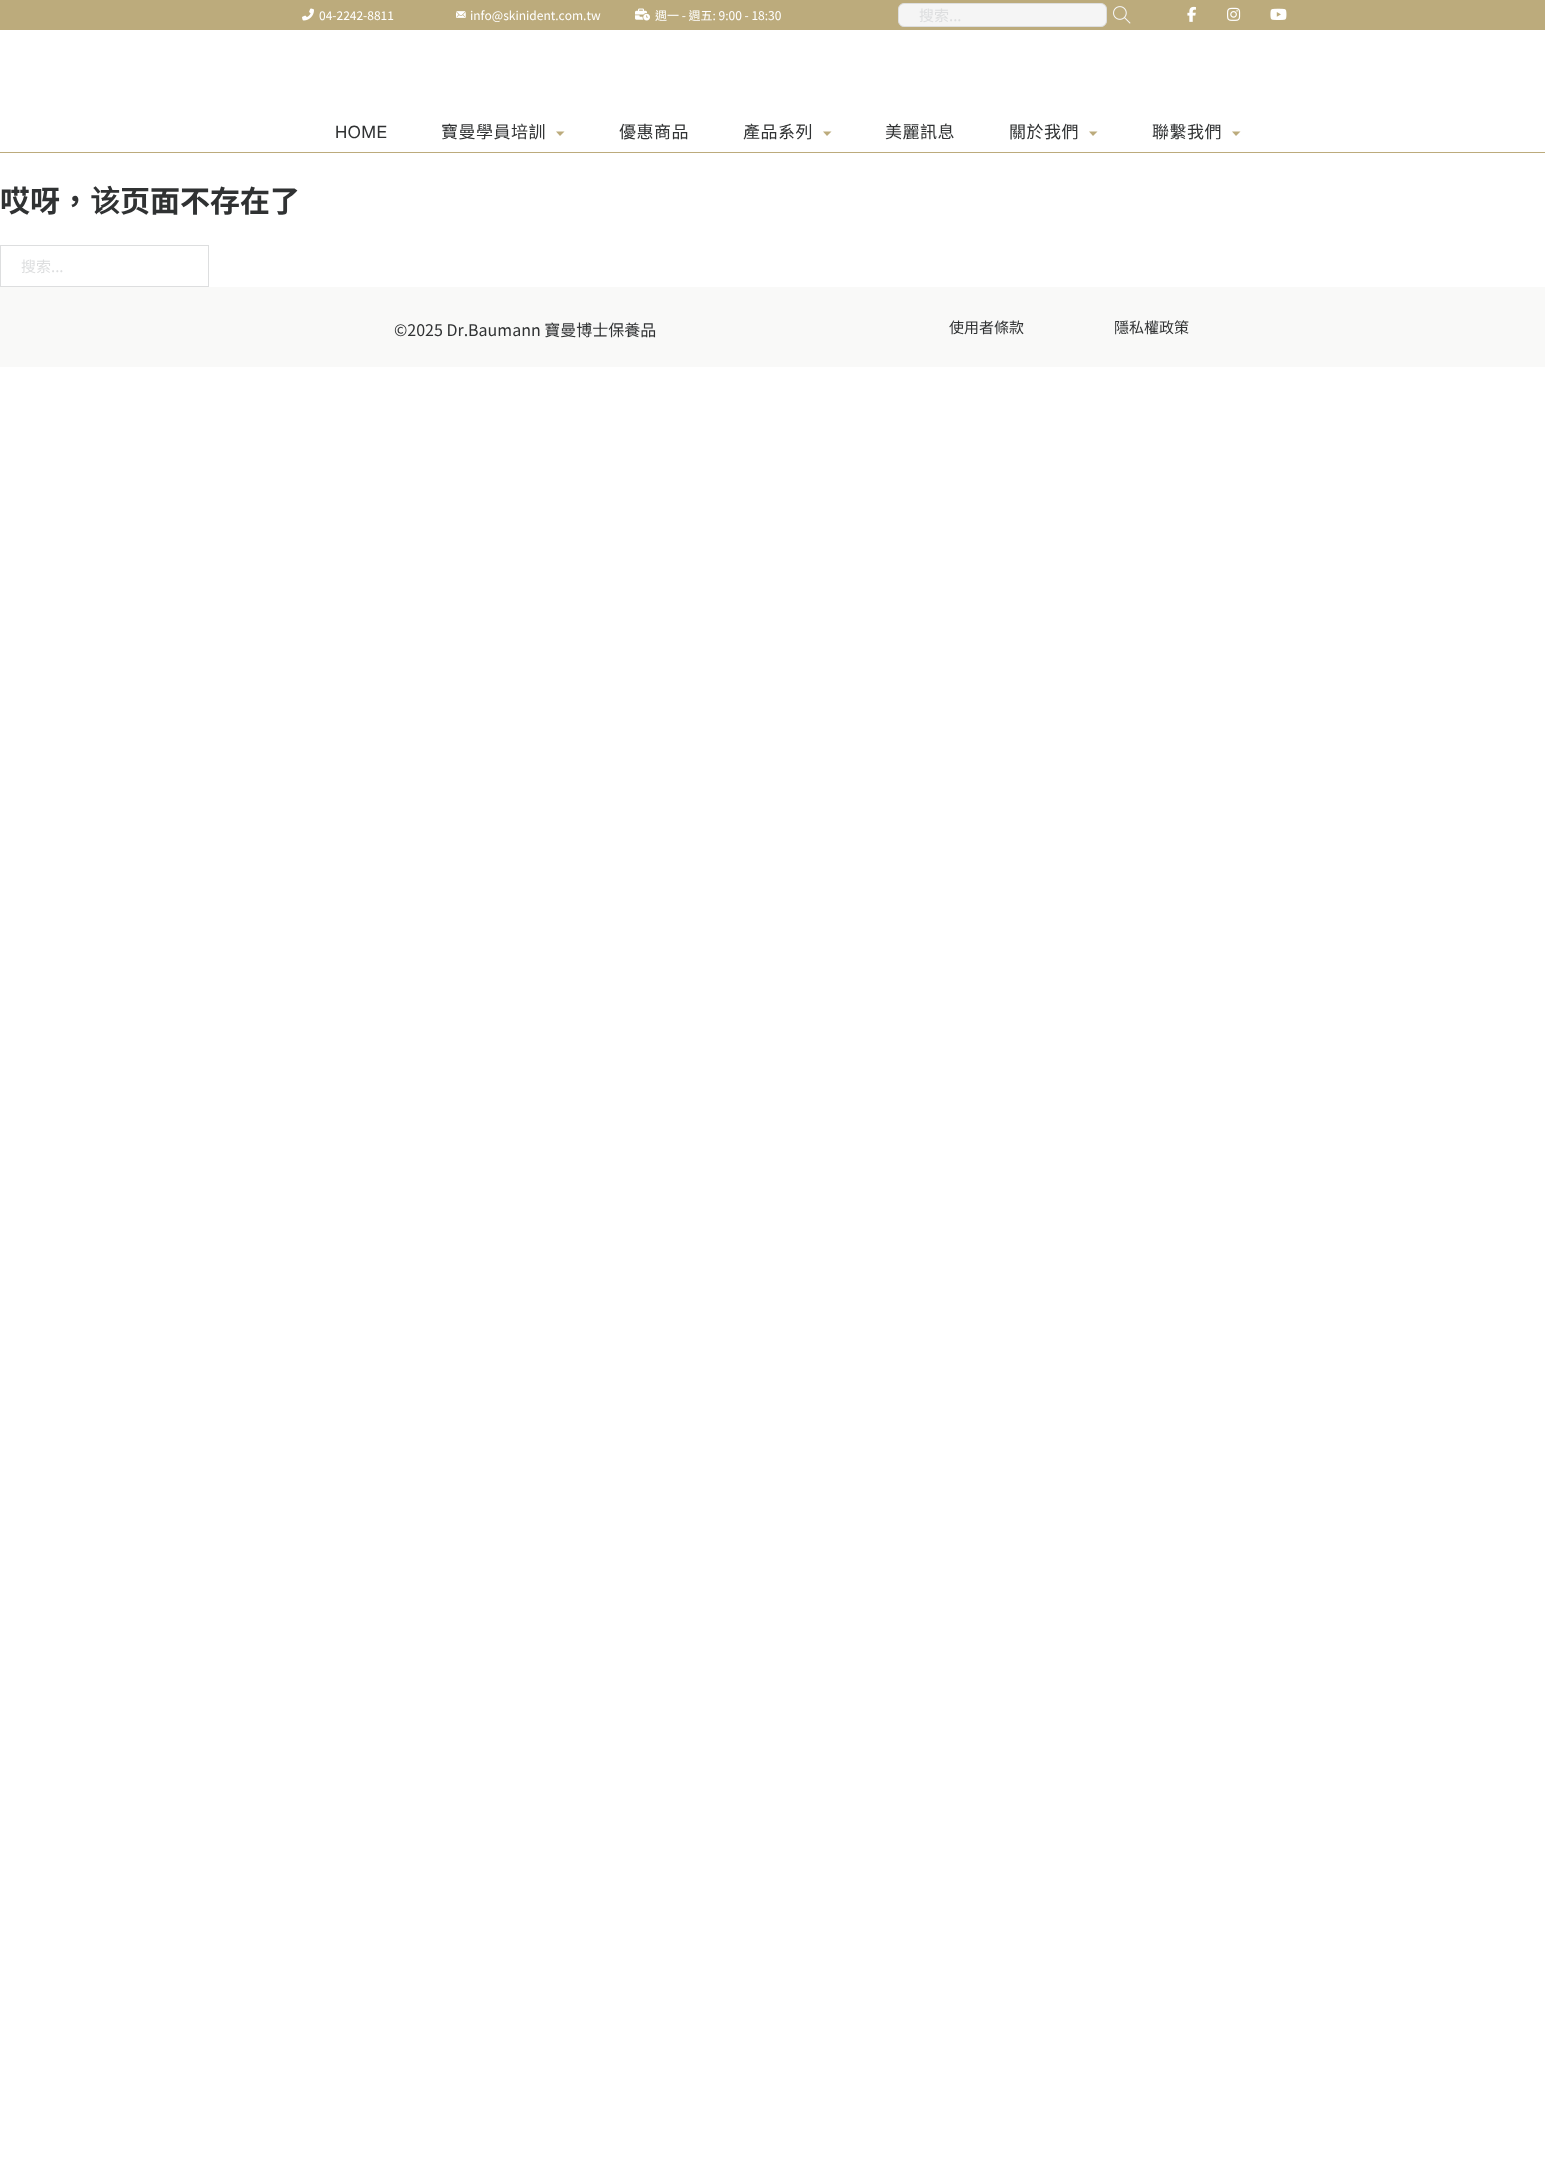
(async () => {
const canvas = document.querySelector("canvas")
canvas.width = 1545
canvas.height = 2158
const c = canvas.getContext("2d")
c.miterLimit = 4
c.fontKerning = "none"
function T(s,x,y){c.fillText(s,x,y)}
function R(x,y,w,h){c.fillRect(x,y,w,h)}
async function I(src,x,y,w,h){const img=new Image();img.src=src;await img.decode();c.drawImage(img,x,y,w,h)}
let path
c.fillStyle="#fff"
R(0,0,1545,2158)
c.fillStyle="#bcab7c"
R(0,152,1545,1)
R(0,0,1545,30)
await I("1.png",302,8,12,13)
c.font="12px Noto Sans TC"
c.fillStyle="#fff"
T("04-2242-8811",319,20)
await I("2.png",456,11,10,7)
T("info@skinident.com.tw",470,20)
await I("3.png",635,8,15,13)
T("週一 - 週五: 9:00 - 18:30",655,20)
c.fillStyle="#f5f5f5"
c.beginPath()
c.roundRect(898.5,3.5,208,23,5.5)
c.fill()
c.strokeStyle="#dddedf"
c.stroke()
c.font="15px Noto Sans TC"
c.fillStyle="#dddedf"
T("搜索...",919,21)
await I("4.png",1113,6,18,18)
await I("5.png",1187,6,9,16)
await I("6.png",1227,7,14,14)
await I("7.png",1270,8,17,12)
c.letterSpacing="0.5px"
c.font="17px Helvetica Neue"
c.fillStyle="#303233"
T("HOME",335,138)
c.font="17px Noto Sans CJK TC"
T("寶曼學員培訓",441,138)
c.fillStyle="#bcab7c"
path = new Path2D("M556 131.5h8.5l-4.5 4.5z")
c.fill(path)
c.fillStyle="#303233"
T("優惠商品",619,138)
T("產品系列",743,138)
c.fillStyle="#bcab7c"
path = new Path2D("M823 131.5h8.5l-4.5 4.5z")
c.fill(path)
c.fillStyle="#303233"
T("美麗訊息",885,138)
T("關於我們",1009,138)
c.fillStyle="#bcab7c"
path = new Path2D("M1089 131.5h8.5l-4.5 4.5z")
c.fill(path)
c.fillStyle="#303233"
T("聯繫我們",1152,138)
c.fillStyle="#bcab7c"
path = new Path2D("M1232 131.5h8.5l-4.5 4.5z")
c.fill(path)
c.letterSpacing="0px"
c.font="bold 30px Noto Sans TC"
c.fillStyle="#303233"
T("哎呀，",0,212)
c.font="bold 30px Noto Sans CJK TC"
T("该",90,212)
c.font="bold 30px Noto Sans TC"
T("页面不存在了",120,212)
c.strokeRect(.5,245.5,208,41)
c.font="15px Noto Sans TC"
c.fillStyle="#dddedf"
T("搜索...",21,272)
c.fillStyle="#f9f9f8"
R(0,287,1545,80)
c.font="16px Noto Sans TC"
c.fillStyle="#303233"
T("©2025 Dr.Baumann 寶曼博士保養品",394,336)
c.font="15px Noto Sans TC"
T("使用者條款",949,333)
T("隱私權政策",1114,333)
})()
